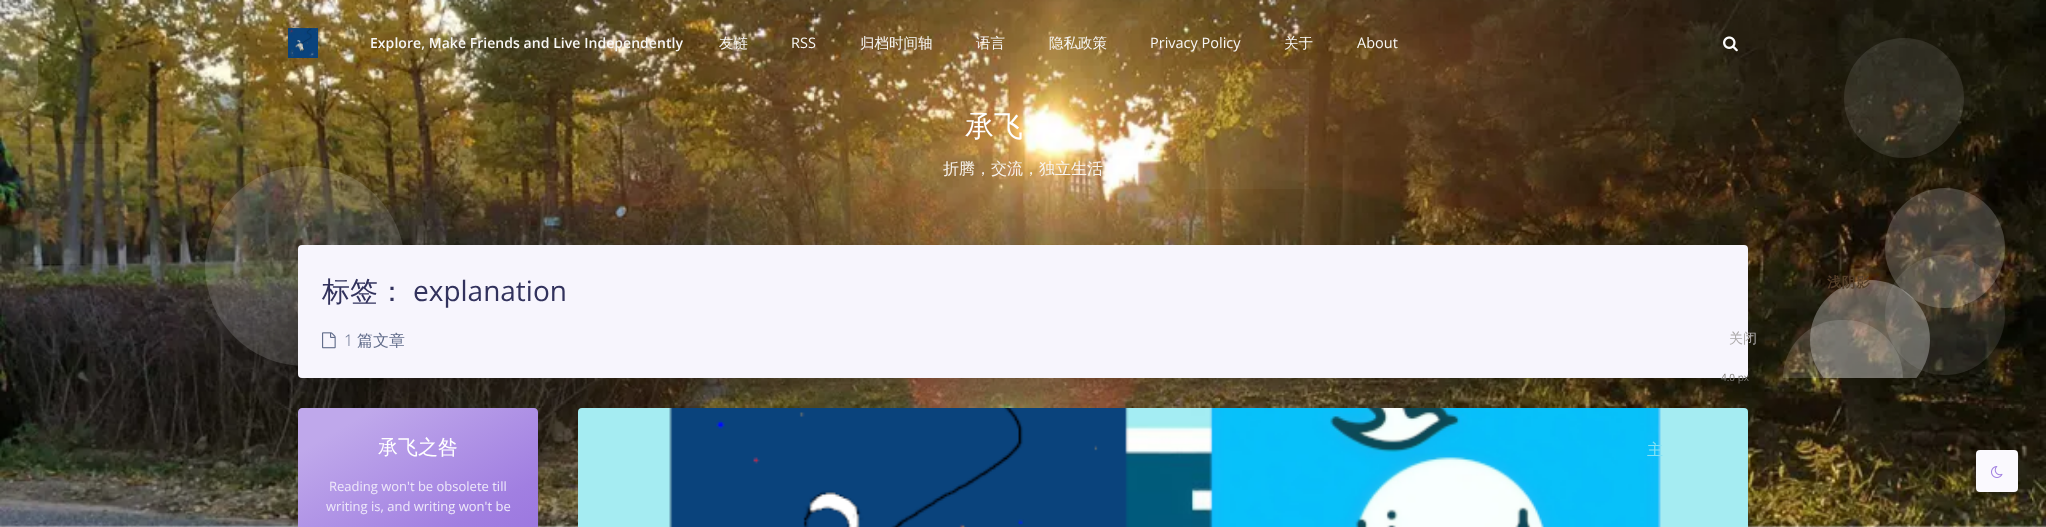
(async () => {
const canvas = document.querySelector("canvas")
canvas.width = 2046
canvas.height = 527
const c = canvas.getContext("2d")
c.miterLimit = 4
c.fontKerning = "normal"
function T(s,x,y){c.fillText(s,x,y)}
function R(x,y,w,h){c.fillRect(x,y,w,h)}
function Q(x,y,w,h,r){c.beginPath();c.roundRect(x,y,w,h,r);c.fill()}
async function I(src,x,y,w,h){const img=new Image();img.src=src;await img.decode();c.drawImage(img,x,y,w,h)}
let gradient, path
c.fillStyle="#fff"
R(0,0,2046,527)
await I("3.png",0,0,2046,527)
await I("1.png",288,28,30,30)
c.letterSpacing="0.05px"
c.font="600 14px Open Sans"
c.fillStyle="#f8f7f5"
T("Explore, Make Friends and Live Independently",370,48)
c.letterSpacing="0px"
c.font="500 14.5px WenQuanYi Zen Hei"
T("友链",719,48)
c.font="14.5px Open Sans"
T("RSS",791,48)
c.font="500 14.5px WenQuanYi Zen Hei"
T("归档时间轴",860,48)
T("语言",976,48)
T("隐私政策",1049,48)
c.font="14.5px Open Sans"
T("Privacy Policy",1150,48)
c.font="500 14.5px WenQuanYi Zen Hei"
T("关于",1284,48)
c.font="14.5px Open Sans"
T("About",1357,48)
await I("2.png",1723,36,15,16)
c.fillStyle="#ffffff1a"
c.beginPath()
c.roundRect(0,0,38,120,[0,60,60,0])
c.fill()
c.fillStyle="#ffffff0a"
R(1189,69,120,120)
c.fillStyle="#ffffff1a"
c.beginPath()
c.arc(1904,98,60,0,7)
c.fill()
c.fillStyle="#ffffff0d"
R(20,144,120,120)
c.fillStyle="#ffffff26"
c.beginPath()
c.arc(305,266,100,0,7)
c.fill()
c.save()
c.beginPath()
c.rect(0,0,2046,378)
c.clip()
c.fillStyle="#ffffff4d"
c.beginPath()
c.arc(1870,340,60,0,7)
c.fill()
c.restore()
c.fillStyle="#ffffff33"
c.beginPath()
c.arc(1945,248,60,0,7)
c.fill()
c.fillStyle="#ffffff26"
c.beginPath()
c.roundRect(1783,320,120,58,[60,60,0,0])
c.fill()
c.fillStyle="#ffffff1a"
c.beginPath()
c.arc(1945,315,60,0,7)
c.fill()
c.font="500 29px WenQuanYi Zen Hei"
c.fillStyle="#fff"
T("承飞",965,136)
c.font="500 16px WenQuanYi Zen Hei"
c.fillStyle="#f8f4ee"
T("折腾，交流，独立生活",943,174)
c.fillStyle="#0000002e"
c.filter="blur(24px)"
c.beginPath()
c.roundRect(298,261,1450,133,4)
c.fill()
c.filter="none"
c.fillStyle="#f7f5fd"
Q(298,245,1450,133,4)
c.font="500 28px WenQuanYi Zen Hei"
c.fillStyle="#32325d"
T("标签：",322,301)
c.font="28px Open Sans"
T("explanation",413,301)
await I("4.png",322,332,14,17)
c.font="300 16px Open Sans"
c.fillStyle="#636e8c"
T("1",344,346)
c.font="500 16px WenQuanYi Zen Hei"
T("篇文章",357,346)
c.fillStyle="#00000012"
c.filter="blur(2px)"
c.beginPath()
c.roundRect(298,410,240,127,4)
c.fill()
c.filter="none"
gradient = c.createLinearGradient(353,376,483,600)
gradient.addColorStop(.15,"#bfa8eb")
gradient.addColorStop(.7,"#a17fe1")
gradient.addColorStop(.94,"#9a75df")
c.fillStyle = gradient
path = new Path2D("M302 408h232c2 0 4 2 4 4v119h-240v-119c0-2 2-4 4-4z")
c.fill(path)
c.font="500 20px WenQuanYi Zen Hei"
c.fillStyle="#fff"
T("承飞之咎",378,454)
c.font="13px Open Sans"
c.fillStyle="#eee8fa"
T("Reading won't be obsolete till",329,491)
T("writing is, and writing won't be",326,511)
c.fillStyle="#00000012"
c.filter="blur(2px)"
c.beginPath()
c.roundRect(578,410,1170,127,4)
c.fill()
c.filter="none"
await I("5.png",578,408,1170,119)
c.letterSpacing="0.5px"
c.font="bold 14px WenQuanYi Zen Hei"
c.fillStyle="#543f2a"
T("浅阴影",1827,287)
c.letterSpacing="0px"
c.font="500 14px WenQuanYi Zen Hei"
c.fillStyle="#aca9a9"
T("关闭",1729,343)
c.font="10px Open Sans"
c.fillStyle="#7c7a76"
T("4.0 px",1721,381)
c.font="500 16px WenQuanYi Zen Hei"
c.fillStyle="#84e2f4"
T("主",1647,455)
c.fillStyle="#00000012"
c.filter="blur(2px)"
c.beginPath()
c.roundRect(1976,452,42,42,4)
c.fill()
c.filter="none"
c.fillStyle="#faf9fe"
Q(1976,450,42,42,4)
await I("6.png",1991,466,12,12)
})()
